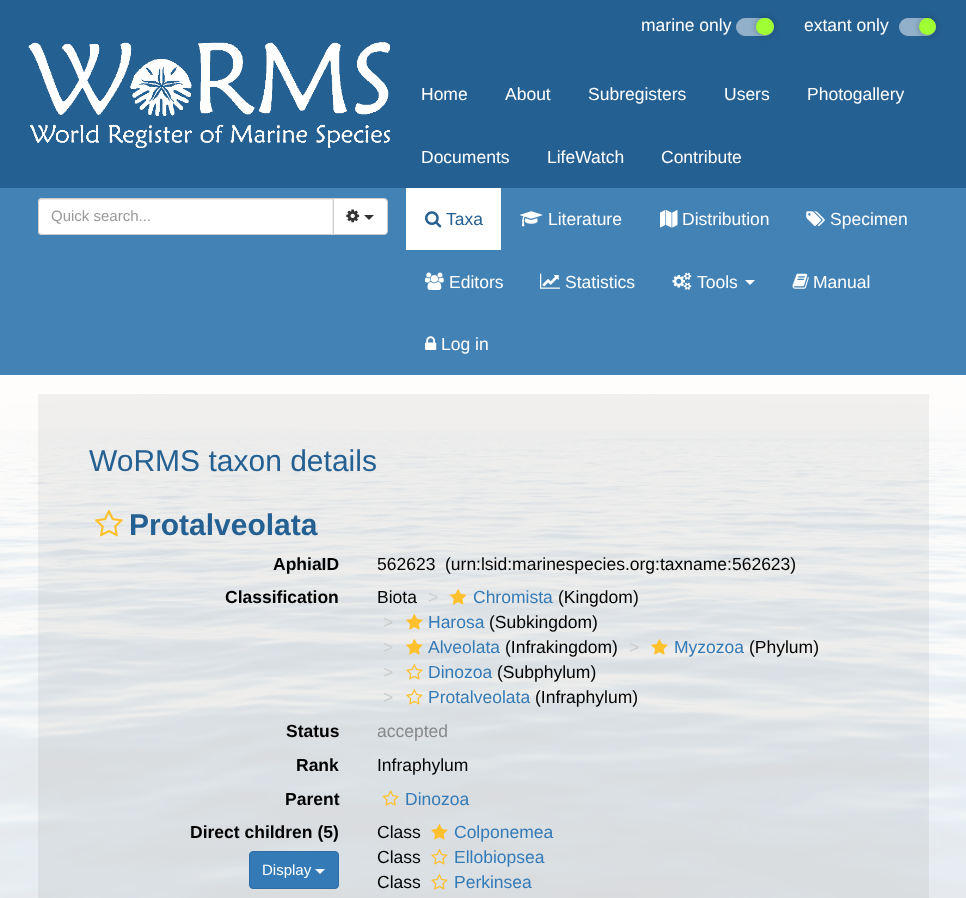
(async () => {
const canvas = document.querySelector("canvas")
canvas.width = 966
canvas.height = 898
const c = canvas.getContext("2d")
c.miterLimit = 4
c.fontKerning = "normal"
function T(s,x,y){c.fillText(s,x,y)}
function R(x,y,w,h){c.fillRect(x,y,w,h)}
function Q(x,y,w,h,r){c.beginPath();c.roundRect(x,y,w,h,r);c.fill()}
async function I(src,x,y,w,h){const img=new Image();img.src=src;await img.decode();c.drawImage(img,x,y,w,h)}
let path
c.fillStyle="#fff"
R(0,0,966,898)
c.fillStyle="#256092"
R(0,0,966,188)
await I("1.png",28,42,362,106)
c.font="17.5px Liberation Sans"
c.fillStyle="#fff"
T("marine only",641,31)
c.fillStyle="#92b0c9"
c.beginPath()
c.roundRect(736.5,18.5,37,17,8.5)
c.fill()
c.strokeStyle="#92b0c9"
c.stroke()
c.fillStyle="#0000004d"
c.filter="blur(3px)"
c.beginPath()
c.roundRect(756,18,18,17,8.5)
c.fill()
c.filter="none"
c.fillStyle="#a0ff33"
Q(756,18,18,17,8.5)
c.fillStyle="#fff"
T("extant only",804,31)
c.fillStyle="#92b0c9"
c.beginPath()
c.roundRect(899.5,18.5,36,17,8.5)
c.fill()
c.stroke()
c.fillStyle="#0000004d"
c.filter="blur(3px)"
c.beginPath()
c.roundRect(919,18,17,17,8.5)
c.fill()
c.filter="none"
c.fillStyle="#a0ff33"
c.beginPath()
c.arc(927.5,26.5,8.5,0,7)
c.fill()
c.fillStyle="#fff"
T("Home",421,100)
T("About",505,100)
T("Subregisters",588,100)
T("Users",724,100)
T("Photogallery",807,100)
T("Documents",421,163)
T("LifeWatch",547,163)
T("Contribute",661,163)
c.fillStyle="#4382b5"
R(0,188,966,187)
c.fillStyle="#fff"
c.beginPath()
c.roundRect(38,198,296,37,[4,0,0,4])
c.fill()
c.fillStyle="#ececec"
path = new Path2D("M41 200h291v34h1v-35h-291c-2 0-3 1-3 3c0-1 1-2 2-2z")
c.fill(path)
c.beginPath()
c.roundRect(38.5,198.5,295,36,[3.5,0,0,3.5])
c.strokeStyle="#ccc"
c.stroke()
c.font="15px Liberation Sans"
c.fillStyle="#999"
T("Quick search...",51,221)
c.fillStyle="#fff"
c.beginPath()
c.roundRect(333.5,198.5,54,36,[0,3.5,3.5,0])
c.fill()
c.stroke()
await I("2.png",346,209,14,14)
c.fillStyle="#333"
path = new Path2D("M364 215h10l-5 5z")
c.fill(path)
c.fillStyle="#fff"
R(406,188,95,62)
await I("3.png",425,211,17,17)
c.font="17.5px Liberation Sans"
c.fillStyle="#256092"
T("Taxa",446,225)
await I("4.png",520,211,23,16)
c.fillStyle="#fff"
T("Literature",548,225)
await I("5.png",660,210,18,18)
T("Distribution",682,225)
await I("6.png",806,211,19,15)
T("Specimen",830,225)
await I("7.png",425,272,19,18)
T("Editors",449,288)
await I("8.png",540,273,20,16)
T("Statistics",565,288)
await I("9.png",672,272,20,18)
T("Tools",697,288)
path = new Path2D("M745 280h10l-5 5z")
c.fill(path)
await I("10.png",792,273,17,16)
T("Manual",813,288)
await I("11.png",425,336,12,14)
T("Log in",441,350)
await I("12.png",0,375,966,523)
c.fillStyle="#ffffffe6"
R(0,375,966,523)
c.fillStyle="#0000000d"
R(38,394,891,504)
c.font="30px Liberation Sans"
c.fillStyle="#256092"
T("WoRMS taxon details",89,471)
await I("13.png",95,509,28,28)
c.font="bold 30px Liberation Sans"
T("Protalveolata",129,535)
c.font="bold 17.5px Liberation Sans"
c.fillStyle="#000"
T("AphiaID",273,570)
c.font="17.5px Liberation Sans"
T("562623",377,570)
T("(urn:lsid:marinespecies.org:taxname:562623)",445,570)
c.font="bold 17.5px Liberation Sans"
T("Classification",225,603)
c.font="17.5px Liberation Sans"
T("Biota",377,603)
c.fillStyle="#ccc"
T(">",428,603)
await I("14.png",450,589,17,16)
c.fillStyle="#337ab7"
T("Chromista",473,603)
c.fillStyle="#000"
T("(Kingdom)",558,603)
c.fillStyle="#ccc"
T(">",383,628)
await I("15.png",406,614,17,16)
c.fillStyle="#337ab7"
T("Harosa",428,628)
c.fillStyle="#000"
T("(Subkingdom)",489,628)
c.fillStyle="#ccc"
T(">",383,653)
await I("16.png",406,639,17,16)
c.fillStyle="#337ab7"
T("Alveolata",428,653)
c.fillStyle="#000"
T("(Infrakingdom)",505,653)
c.fillStyle="#ccc"
T(">",629,653)
await I("17.png",651,639,17,16)
c.fillStyle="#337ab7"
T("Myzozoa",674,653)
c.fillStyle="#000"
T("(Phylum)",749,653)
c.fillStyle="#ccc"
T(">",383,678)
await I("18.png",406,664,17,16)
c.fillStyle="#337ab7"
T("Dinozoa",428,678)
c.fillStyle="#000"
T("(Subphylum)",497,678)
c.fillStyle="#ccc"
T(">",383,703)
await I("19.png",406,689,17,16)
c.fillStyle="#337ab7"
T("Protalveolata",428,703)
c.fillStyle="#000"
T("(Infraphylum)",535,703)
c.font="bold 17.5px Liberation Sans"
T("Status",286,737)
c.font="17.5px Liberation Sans"
c.fillStyle="#888"
T("accepted",377,737)
c.font="bold 17.5px Liberation Sans"
c.fillStyle="#000"
T("Rank",296,771)
c.font="17.5px Liberation Sans"
T("Infraphylum",377,771)
c.font="bold 17.5px Liberation Sans"
T("Parent",285,805)
await I("20.png",382,790,17,16)
c.font="17.5px Liberation Sans"
c.fillStyle="#337ab7"
T("Dinozoa",405,805)
c.font="bold 17.5px Liberation Sans"
c.fillStyle="#000"
T("Direct children (5)",190,838)
c.fillStyle="#337ab7"
c.beginPath()
c.roundRect(249.5,851.5,89,37,3.5)
c.fill()
c.strokeStyle="#2e6da4"
c.stroke()
c.font="15px Liberation Sans"
c.fillStyle="#fff"
T("Display",262,875)
path = new Path2D("M315 869h10l-5 5z")
c.fill(path)
c.font="17.5px Liberation Sans"
c.fillStyle="#000"
T("Class",377,838)
await I("21.png",431,824,17,16)
c.fillStyle="#337ab7"
T("Colponemea",454,838)
c.fillStyle="#000"
T("Class",377,863)
await I("22.png",431,849,17,16)
c.fillStyle="#337ab7"
T("Ellobiopsea",454,863)
c.fillStyle="#000"
T("Class",377,888)
await I("23.png",431,874,17,16)
c.fillStyle="#337ab7"
T("Perkinsea",454,888)
})()
